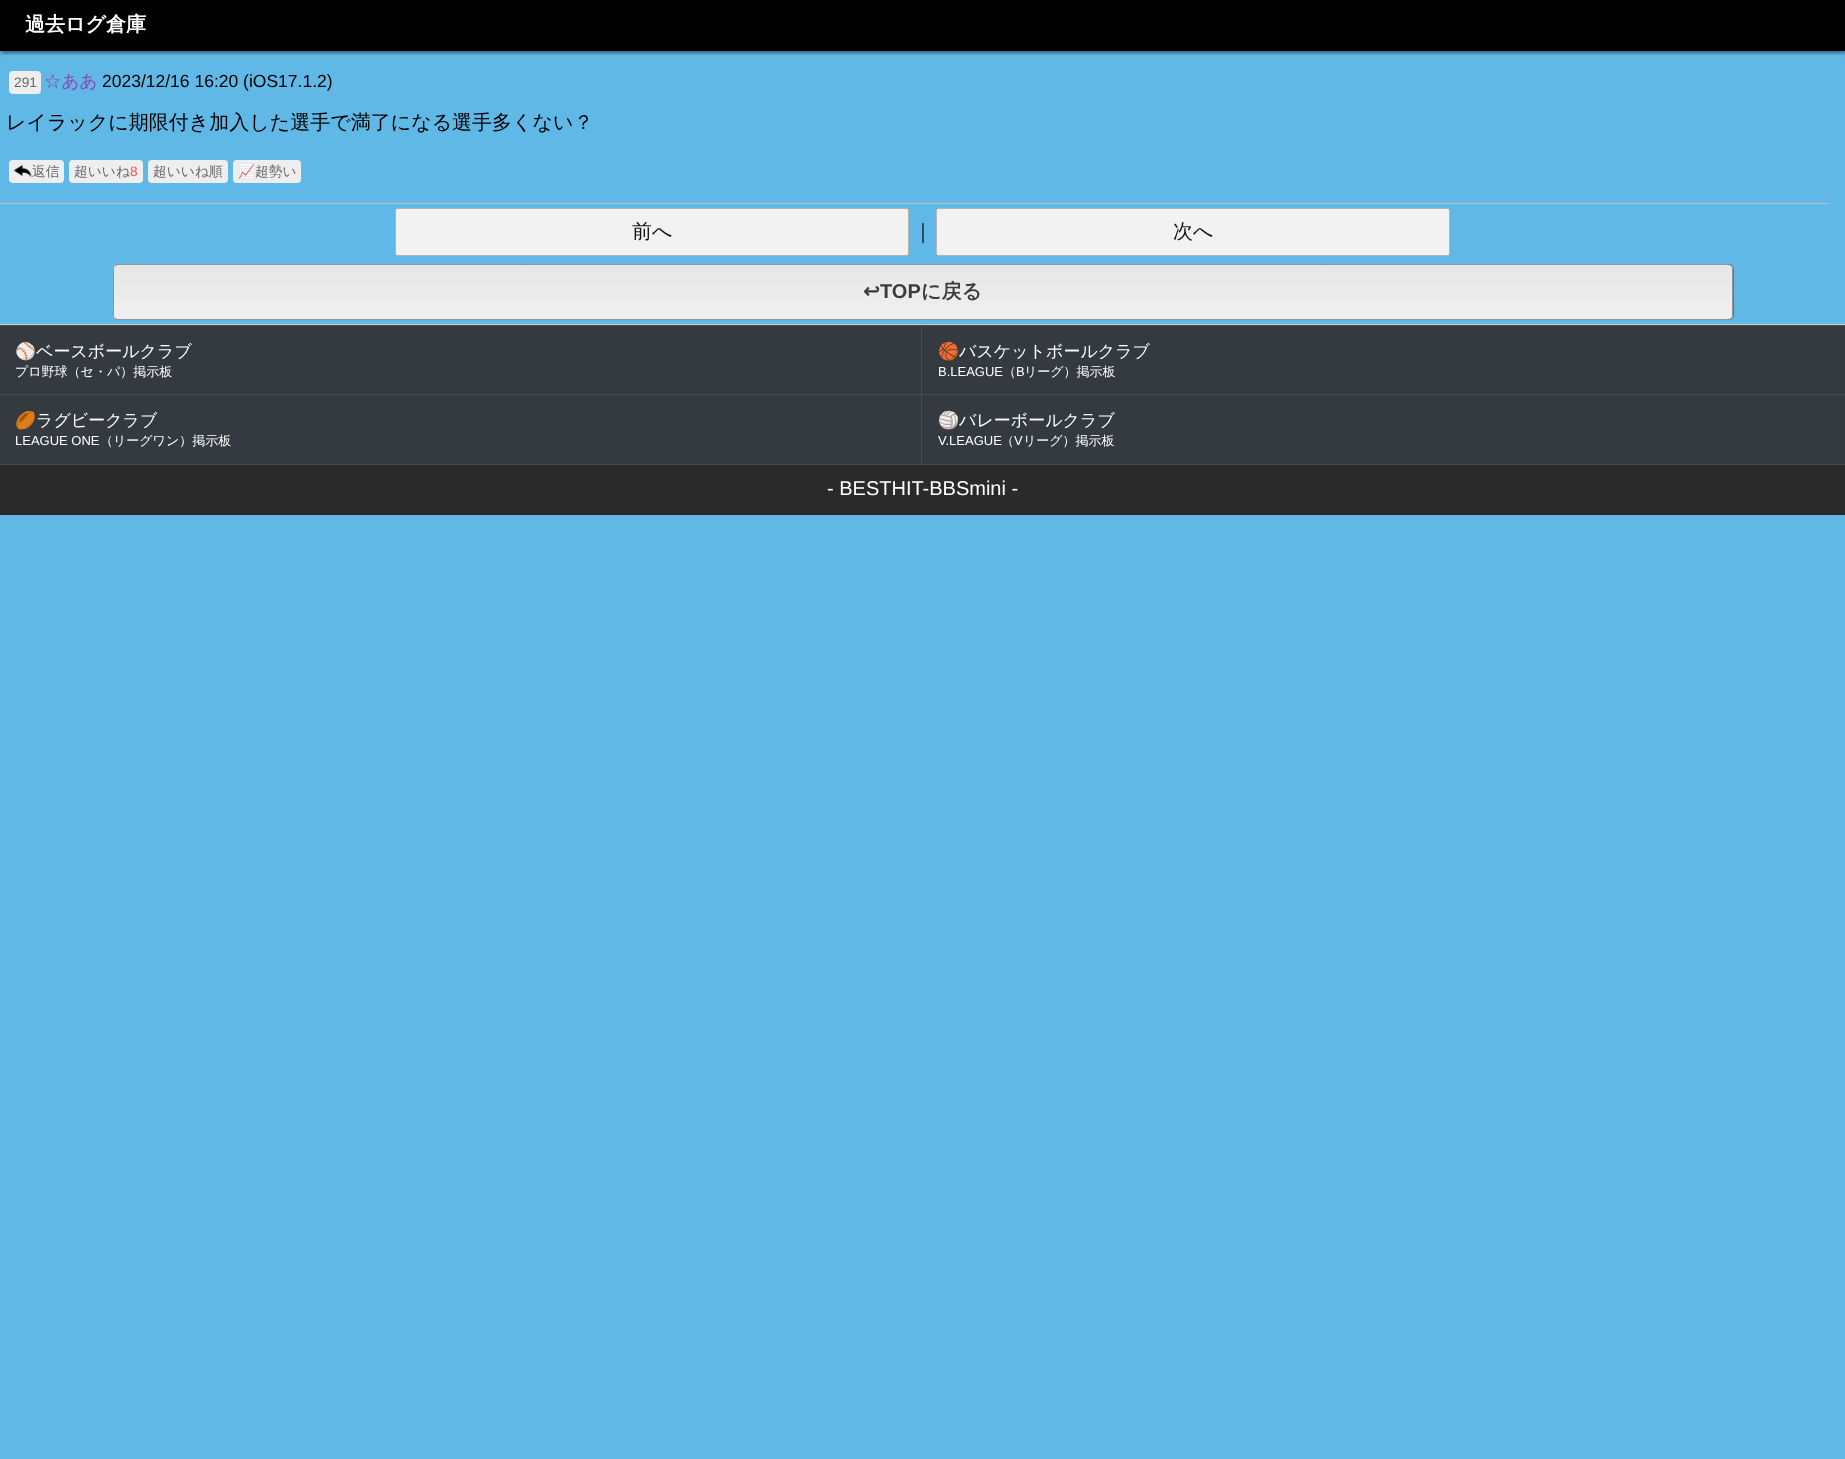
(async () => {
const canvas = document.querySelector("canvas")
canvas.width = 1845
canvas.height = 1459
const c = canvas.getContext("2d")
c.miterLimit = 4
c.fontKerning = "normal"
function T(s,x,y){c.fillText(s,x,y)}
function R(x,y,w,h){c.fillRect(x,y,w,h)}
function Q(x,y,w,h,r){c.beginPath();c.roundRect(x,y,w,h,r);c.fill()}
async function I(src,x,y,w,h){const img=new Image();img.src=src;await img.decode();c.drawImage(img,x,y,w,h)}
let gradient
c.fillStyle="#60b8e7"
R(0,0,1845,1459)
c.fillStyle="#00000080"
c.filter="blur(2px)"
c.beginPath()
c.rect(1,1,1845,52)
c.fill()
c.filter="none"
c.fillStyle="#000"
R(0,0,1845,51)
c.font="bold 20px WenQuanYi Zen Hei"
c.fillStyle="#fff"
T("過去ログ倉庫",25,31)
c.fillStyle="#60b8e7"
R(3,55,1840,2)
c.fillStyle="#eee"
Q(9,71,32,23,4)
c.font="13.75px Liberation Sans"
c.fillStyle="#696969"
T("291",14,87)
c.font="500 17.5px WenQuanYi Zen Hei"
c.fillStyle="#8d45b5"
T("☆ああ",44,87)
c.font="17.5px Liberation Sans"
c.fillStyle="#000"
T("2023/12/16 16:20 (iOS17.1.2)",102,87)
c.font="500 20px WenQuanYi Zen Hei"
T("レイラックに期限付き加入した選手で満了になる選手多くない？",6,129)
c.fillStyle="#eee"
Q(9,160,55,23,4)
await I("1.png",13,164,19,14)
c.font="500 13.75px WenQuanYi Zen Hei"
c.fillStyle="#696969"
T("返信",32,176)
c.fillStyle="#eee"
Q(69,160,74,23,4)
c.fillStyle="#696969"
T("超いいね",74,176)
c.font="13.75px Liberation Sans"
c.fillStyle="#f45b5b"
T("8",130,176)
c.fillStyle="#eee"
Q(148,160,80,23,4)
c.font="500 13.75px WenQuanYi Zen Hei"
c.fillStyle="#696969"
T("超いいね順",153,176)
c.fillStyle="#eee"
Q(233,160,68,23,4)
c.font="13.75px Noto Color Emoji"
c.fillStyle="#696969"
T("📈",238,176)
c.font="500 13.75px WenQuanYi Zen Hei"
T("超勢い",255,176)
c.fillStyle="#c0c0c0"
R(0,203,1829,1)
c.fillStyle="#f2f2f2"
c.beginPath()
c.roundRect(395.5,208.5,513,47,2)
c.fill()
c.strokeStyle="#b3b3b3"
c.stroke()
c.font="500 20px WenQuanYi Zen Hei"
c.fillStyle="#111"
T("前へ",632,238)
c.fillStyle="#000"
T("｜",913,238)
c.fillStyle="#f2f2f2"
c.beginPath()
c.roundRect(936.5,208.5,513,47,2)
c.fill()
c.stroke()
c.fillStyle="#111"
T("次へ",1173,238)
c.fillStyle="#0000004d"
c.filter="blur(0.5px)"
c.beginPath()
c.roundRect(114,264,1620,56,5)
c.fill()
c.filter="none"
c.save()
c.beginPath()
c.roundRect(113,264,1620,56,5)
c.clip()
gradient = c.createLinearGradient(114,265,114,319)
gradient.addColorStop(0,"#e6e6e6")
gradient.addColorStop(1,"#f0f0f0")
c.fillStyle = gradient
R(113,265,1620,54)
c.restore()
c.beginPath()
c.roundRect(113.5,264.5,1619,55,4.5)
c.strokeStyle="#949494"
c.stroke()
c.font="bold 20px DejaVu Sans"
c.fillStyle="#3d3b3d"
T("↩",863,298)
c.font="bold 20px Liberation Sans"
T("TOP",880,298)
c.font="bold 20px WenQuanYi Zen Hei"
T("に戻る",921,298)
c.fillStyle="#ccc"
R(0,324,1845,1)
c.strokeStyle="#454d55"
c.strokeRect(-.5,325.5,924,70)
c.fillStyle="#343a40"
R(0,326,923,68)
c.font="17px Noto Color Emoji"
c.fillStyle="#fff"
T("⚾",15,357)
c.font="500 17px WenQuanYi Zen Hei"
T("ベースボールクラブ",36,357)
c.font="500 13px WenQuanYi Zen Hei"
T("プロ野球（セ・パ）掲示板",15,376)
c.strokeRect(921.5,325.5,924,70)
c.fillStyle="#343a40"
R(923,326,922,68)
c.save()
c.beginPath()
c.rect(938,341,892,39)
c.clip()
c.font="17px Noto Color Emoji"
c.fillStyle="#fff"
T("🏀",938,357)
c.restore()
c.font="500 17px WenQuanYi Zen Hei"
c.fillStyle="#fff"
T("バスケットボールクラブ",959,357)
c.font="13px Liberation Sans"
T("B.LEAGUE",938,376)
c.font="500 13px WenQuanYi Zen Hei"
T("（",1003,376)
c.font="13px Liberation Sans"
T("B",1016,376)
c.font="500 13px WenQuanYi Zen Hei"
T("リーグ）掲示板",1024,376)
c.strokeRect(-.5,394.5,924,70)
c.fillStyle="#343a40"
R(0,395,923,69)
c.font="17px Noto Color Emoji"
c.fillStyle="#fff"
T("🏉",15,426)
c.font="500 17px WenQuanYi Zen Hei"
T("ラグビークラブ",36,426)
c.font="13px Liberation Sans"
T("LEAGUE ONE",15,445)
c.font="500 13px WenQuanYi Zen Hei"
T("（リーグワン）掲示板",100,445)
c.strokeRect(921.5,394.5,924,70)
c.fillStyle="#343a40"
R(923,395,922,69)
c.save()
c.beginPath()
c.rect(938,410,892,39)
c.clip()
c.font="17px Noto Color Emoji"
c.fillStyle="#fff"
T("🏐",938,426)
c.restore()
c.font="500 17px WenQuanYi Zen Hei"
c.fillStyle="#fff"
T("バレーボールクラブ",959,426)
c.font="13px Liberation Sans"
T("V.LEAGUE",938,445)
c.font="500 13px WenQuanYi Zen Hei"
T("（",1001,445)
c.font="13px Liberation Sans"
T("V",1014,445)
c.font="500 13px WenQuanYi Zen Hei"
T("リーグ）掲示板",1023,445)
c.fillStyle="#2a2a2a"
R(0,465,1845,50)
c.font="20px Liberation Sans"
c.fillStyle="#fff"
T("- BESTHIT-BBSmini -",827,495)
})()
